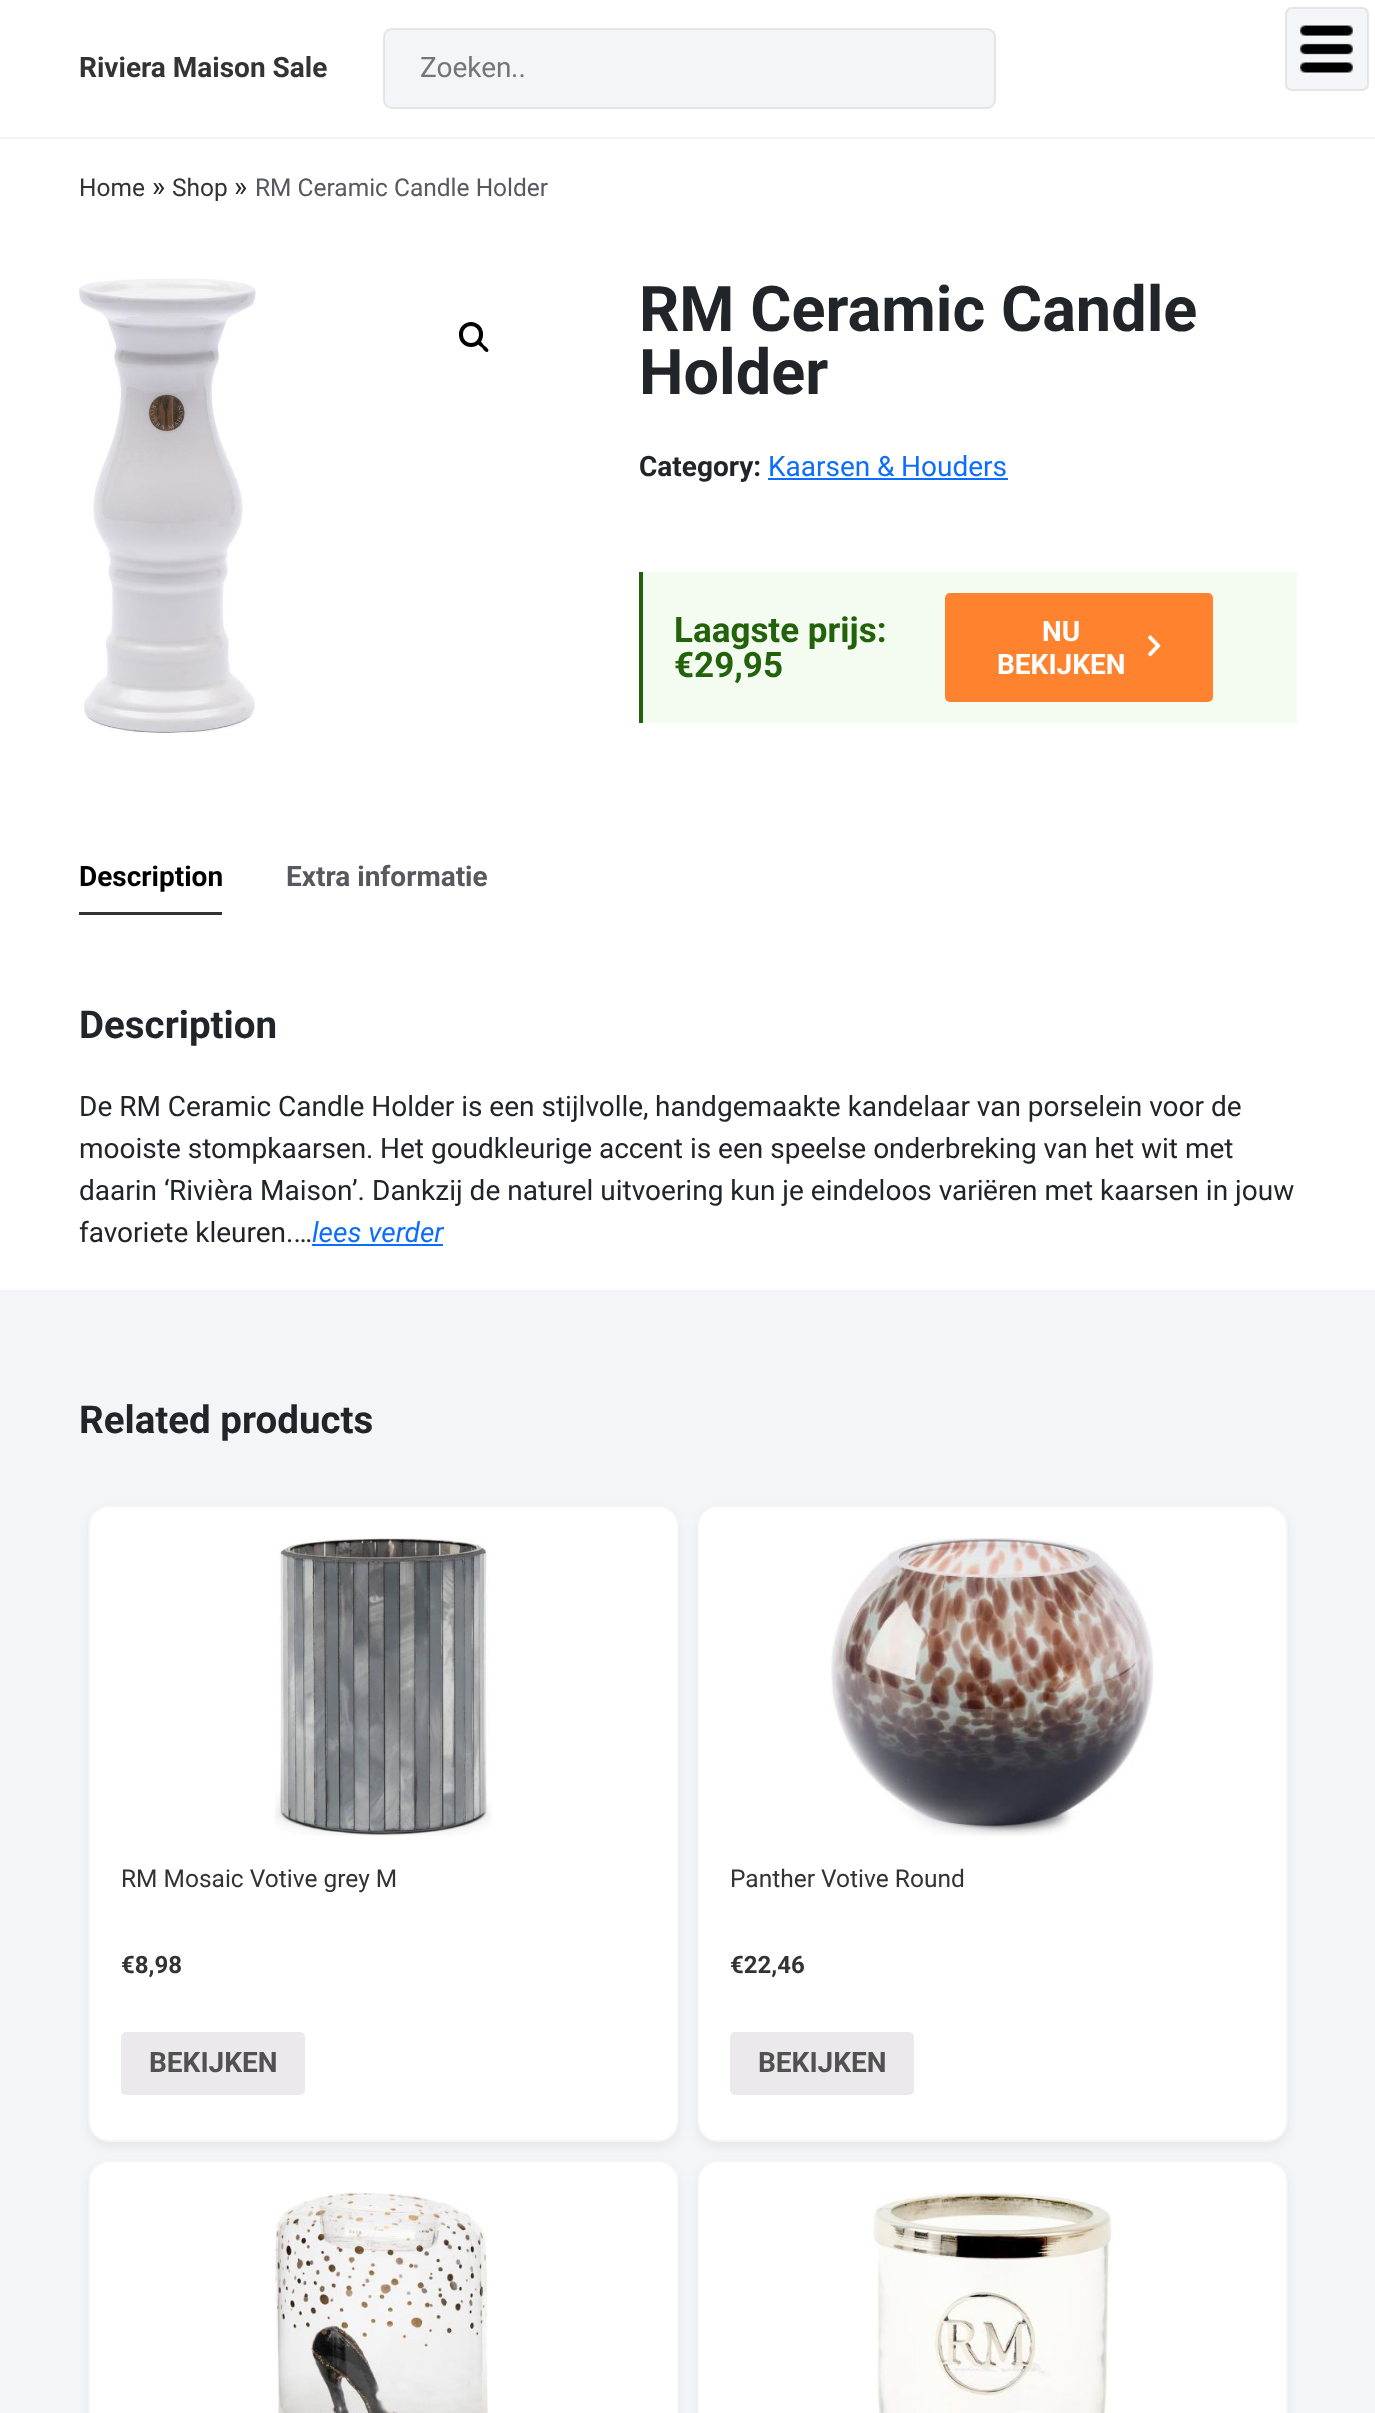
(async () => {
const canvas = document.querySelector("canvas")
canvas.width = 1375
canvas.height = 2413
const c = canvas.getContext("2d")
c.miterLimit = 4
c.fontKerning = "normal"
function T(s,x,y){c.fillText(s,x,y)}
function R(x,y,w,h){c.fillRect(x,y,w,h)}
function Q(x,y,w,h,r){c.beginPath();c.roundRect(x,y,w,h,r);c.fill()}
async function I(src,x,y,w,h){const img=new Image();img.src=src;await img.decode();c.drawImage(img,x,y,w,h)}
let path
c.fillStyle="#fff"
R(0,0,1375,2413)
c.fillStyle="#f4f5f9"
R(0,137,1375,2)
c.font="bold 28px Roboto"
c.fillStyle="#333"
T("Riviera Maison Sale",79,77)
c.fillStyle="#f4f5f9"
c.beginPath()
c.roundRect(384,29,611,79,8)
c.fill()
c.strokeStyle="#e4e5e9"
c.lineWidth=2
c.stroke()
c.font="28px Roboto"
c.fillStyle="#757575"
T("Zoeken",420,77)
c.font="28px 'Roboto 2'"
T("..",511,77)
c.fillStyle="#f4f5f9"
Q(1285,7,84,84,7)
await I("1.png",1300,25,53,48)
c.beginPath()
c.roundRect(1286,8,82,82,6)
c.strokeStyle="#e5e5e5"
c.stroke()
c.font="24.5px Roboto"
c.fillStyle="#333"
T("Home",79,196)
c.font="28px 'Roboto 2'"
c.fillStyle="#212529"
T("»",152,196)
c.font="24.5px Roboto"
c.fillStyle="#333"
T("Shop",172,196)
c.font="28px 'Roboto 2'"
c.fillStyle="#212529"
T("»",234,196)
c.font="24.5px Roboto"
c.fillStyle="#57595f"
T("RM Ceramic Candle Holder",255,196)
await I("2.png",79,278,177,455)
c.beginPath()
c.roundRect(461,324,20,21,10)
c.strokeStyle="#000"
c.lineWidth=4
c.stroke()
c.fillStyle="#000"
path = new Path2D("M478 341.5c2-2 5 2.5 6 4c1.5 1 6 4 4 6c-2 2-5-2.5-6-4c-1.5-1-6-4-4-6z")
c.fill(path)
c.font="bold 63px Roboto"
c.fillStyle="#212529"
T("RM Ceramic Candle",639,331)
T("Holder",639,394)
c.font="bold 28px Roboto"
T("Category:",639,476)
c.font="28px Roboto"
c.fillStyle="#0d6efd"
T("Kaarsen",768,476)
R(768,478,240,2)
c.font="28px 'Roboto 2'"
T("&",877,476)
c.font="28px Roboto"
T("Houders",901,476)
c.fillStyle="#f4fbf1"
R(643,572,654,151)
c.fillStyle="#21620a"
R(639,572,4,151)
c.font="bold 35px Roboto"
T("Laagste prijs:",674,642)
T("€29,95",674,677)
c.fillStyle="#ff822e"
Q(945,593,268,109,5)
c.font="bold 28px Roboto"
c.fillStyle="#fff"
T("NU",1042,641)
await I("3.png",1148,635,13,22)
T("BEKIJKEN",997,674)
c.fillStyle="#333"
R(79,912,143,3)
c.fillStyle="#000"
T("Description",79,886)
c.fillStyle="#57595f"
T("Extra informatie",286,886)
c.font="bold 38.5px Roboto"
c.fillStyle="#212529"
T("Description",79,1038)
c.font="28px Roboto"
T("De RM Ceramic Candle Holder is een stijlvolle",79,1116)
c.font="28px 'Roboto 2'"
T(",",643,1116)
c.font="28px Roboto"
T("handgemaakte kandelaar van porselein voor de",655,1116)
T("mooiste stompkaarsen",79,1158)
c.font="28px 'Roboto 2'"
T(".",366,1158)
c.font="28px Roboto"
T("Het goudkleurige accent is een speelse onderbreking van het wit met",380,1158)
T("daarin",79,1200)
c.font="28px 'Roboto 2'"
T("‘",164,1200)
c.font="28px Roboto"
T("Rivi",169,1200)
c.font="28px 'Roboto 2'"
T("è",214,1200)
c.font="28px Roboto"
T("ra Maison",229,1200)
c.font="28px 'Roboto 2'"
T("’.",352,1200)
c.font="28px Roboto"
T("Dankzij de naturel uitvoering kun je eindeloos vari",372,1200)
c.font="28px 'Roboto 2'"
T("ë",983,1200)
c.font="28px Roboto"
T("ren met kaarsen in jouw",998,1200)
T("favoriete kleuren",79,1242)
c.font="28px 'Roboto 2'"
T(".…",286,1242)
c.font="italic 28px Roboto"
c.fillStyle="#0d6efd"
T("lees verder",312,1242)
R(312,1244,131,2)
c.fillStyle="#f4f5f9"
R(0,1290,1375,1123)
c.font="bold 38.5px Roboto"
c.fillStyle="#212529"
T("Related products",79,1433)
c.fillStyle="#7878781a"
c.filter="blur(5px)"
c.beginPath()
c.roundRect(88,1510,591,637,21)
c.fill()
c.filter="none"
c.fillStyle="#fff"
c.beginPath()
c.roundRect(89,1506,589,635,20)
c.fill()
c.strokeStyle="#f4f5f6"
c.lineWidth=2
c.stroke()
await I("4.png",275,1538,217,298)
c.font="24.5px Roboto"
c.fillStyle="#333"
T("RM Mosaic Votive grey M",121,1887)
c.font="bold 24px Roboto"
T("€8,98",121,1973)
c.fillStyle="#ebe9eb"
Q(121,2032,184,63,5)
c.font="bold 28px Roboto"
c.fillStyle="#515151"
T("BEKIJKEN",149,2072)
c.fillStyle="#7878781a"
c.filter="blur(5px)"
c.beginPath()
c.roundRect(697,1510,591,637,21)
c.fill()
c.filter="none"
c.fillStyle="#fff"
c.beginPath()
c.roundRect(698,1506,589,635,20)
c.fill()
c.stroke()
await I("5.png",831,1538,323,298)
c.font="24.5px Roboto"
c.fillStyle="#333"
T("Panther Votive Round",730,1887)
c.font="bold 24px Roboto"
T("€22,46",730,1973)
c.fillStyle="#ebe9eb"
Q(730,2032,184,63,5)
c.font="bold 28px Roboto"
c.fillStyle="#515151"
T("BEKIJKEN",758,2072)
c.fillStyle="#7878781a"
c.filter="blur(5px)"
c.beginPath()
c.roundRect(88,2165,591,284,21)
c.fill()
c.filter="none"
c.fillStyle="#fff"
c.beginPath()
c.roundRect(89,2161,589,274,20)
c.fill()
c.stroke()
await I("6.png",275,2192,213,221)
c.fillStyle="#7878781a"
c.filter="blur(5px)"
c.beginPath()
c.roundRect(697,2165,591,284,21)
c.fill()
c.filter="none"
c.fillStyle="#fff"
c.beginPath()
c.roundRect(698,2161,589,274,20)
c.fill()
c.stroke()
await I("7.png",873,2192,239,221)
})()
